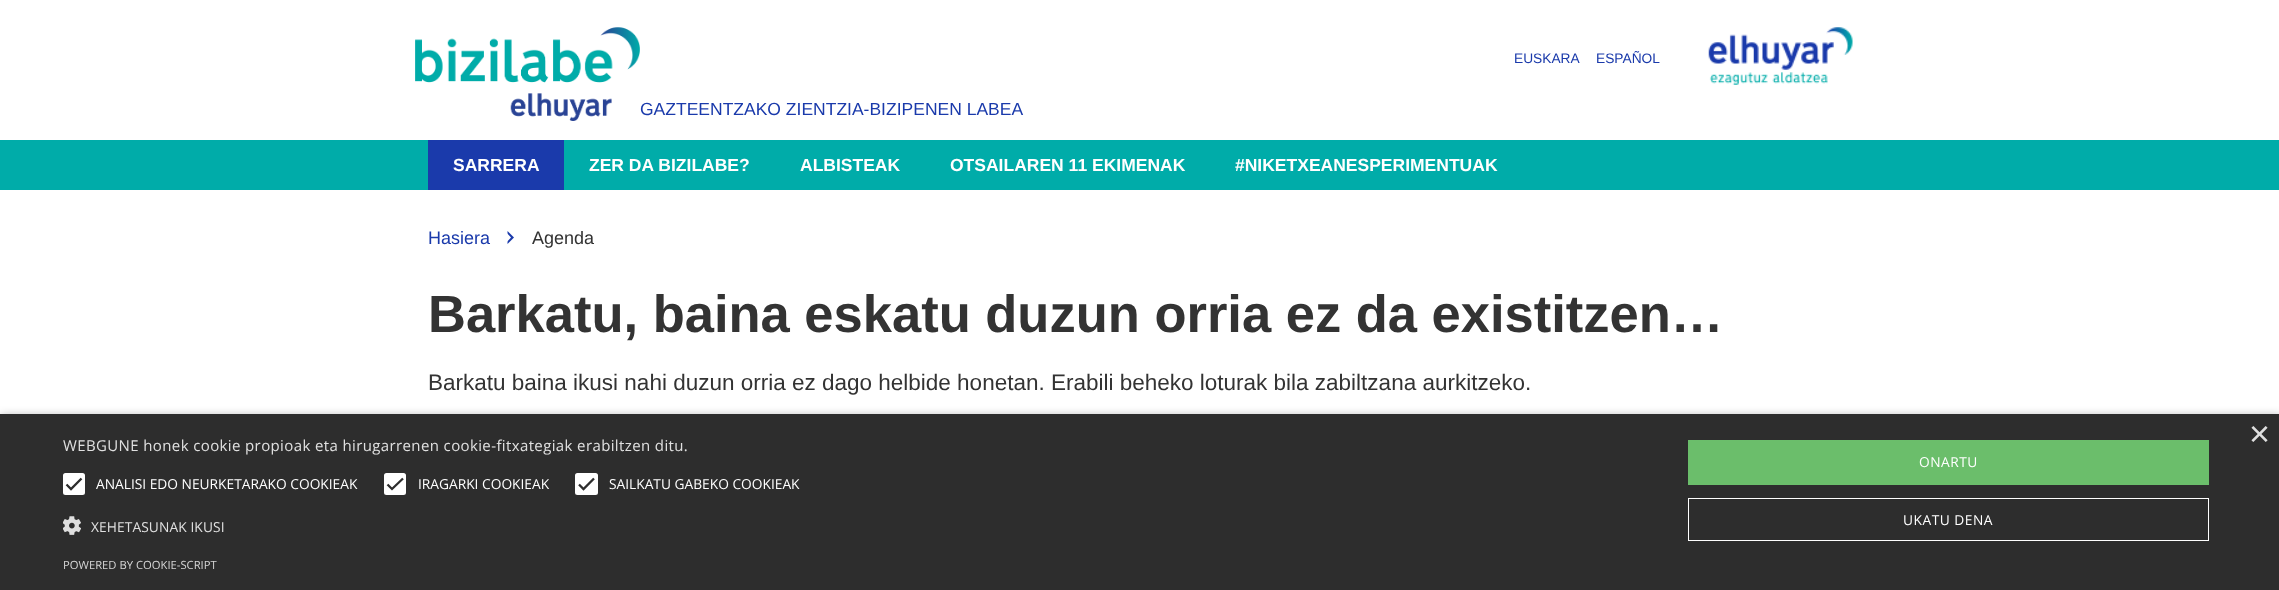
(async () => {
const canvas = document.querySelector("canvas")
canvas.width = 2279
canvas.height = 590
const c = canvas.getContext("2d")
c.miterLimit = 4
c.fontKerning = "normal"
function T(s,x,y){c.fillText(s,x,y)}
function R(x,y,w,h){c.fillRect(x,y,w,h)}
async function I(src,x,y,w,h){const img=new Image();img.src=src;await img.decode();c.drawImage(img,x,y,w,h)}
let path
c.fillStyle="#fff"
R(0,0,2279,590)
await I("1.png",415,27,225,94)
c.font="13.75px Liberation Sans"
c.fillStyle="#1a3aab"
T("EUSKARA",1514,63)
T("ESPAÑOL",1596,63)
await I("2.png",1708,27,145,58)
c.font="17.5px Liberation Sans"
T("GAZTEENTZAKO ZIENTZIA-BIZIPENEN LABEA",640,115)
c.fillStyle="#00aca9"
R(0,140,2279,50)
c.fillStyle="#1a3aab"
R(428,140,136,50)
c.font="bold 17.5px Liberation Sans"
c.fillStyle="#fff"
T("SARRERA",453,171)
T("ZER DA BIZILABE?",589,171)
T("ALBISTEAK",800,171)
T("OTSAILAREN 11 EKIMENAK",950,171)
T("#NIKETXEANESPERIMENTUAK",1235,171)
c.font="18px Liberation Sans"
c.fillStyle="#1a3aab"
T("Hasiera",428,244)
path = new Path2D("M507.5 244v-13l6.5 6.5z")
c.fill(path)
c.fillStyle="#fff"
path = new Path2D("M505 244v-13l6 6.5z")
c.fill(path)
c.fillStyle="#333"
T("Agenda",532,244)
c.font="bold 52.5px Liberation Sans"
T("Barkatu, baina eskatu duzun orria ez da existitzen…",428,332)
c.font="22.5px Liberation Sans"
T("Barkatu baina ikusi nahi duzun orria ez dago helbide honetan. Erabili beheko loturak bila zabiltzana aurkitzeko.",428,390)
c.fillStyle="#00000059"
c.filter="blur(5px)"
c.beginPath()
c.rect(1,416,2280,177)
c.fill()
c.filter="none"
c.fillStyle="#2d2d2d"
R(0,414,2279,176)
c.font="36px Liberation Sans"
c.fillStyle="#e0e0e0"
T("×",2249,446)
c.letterSpacing="0.38px"
c.font="15px Open Sans"
T("WEBGUNE honek cookie propioak eta hirugarrenen cookie-fitxategiak erabiltzen ditu.",63,451)
c.fillStyle="#fff"
c.beginPath()
c.roundRect(64.5,474.5,19,19,1)
c.fill()
c.strokeStyle="#fff"
c.lineWidth=3
c.stroke()
path = new Path2D("M66.5 484.5l4.5 4.5l10.5-10.5")
c.strokeStyle="#2d2d2d"
c.lineWidth=2.3
c.stroke(path)
c.letterSpacing="0px"
c.font="13.75px Open Sans"
T("ANALISI EDO NEURKETARAKO COOKIEAK",96,489)
c.beginPath()
c.roundRect(385.5,474.5,19,19,1)
c.fill()
c.strokeStyle="#fff"
c.lineWidth=3
c.stroke()
path = new Path2D("M387.5 484.5l4.5 4.5l11-10.5")
c.strokeStyle="#2d2d2d"
c.lineWidth=2.3
c.stroke(path)
T("IRAGARKI COOKIEAK",418,489)
c.beginPath()
c.roundRect(576.5,474.5,20,19,1)
c.fill()
c.strokeStyle="#fff"
c.lineWidth=3
c.stroke()
path = new Path2D("M579 484.5l4.5 4.5l10.5-10.5")
c.strokeStyle="#2d2d2d"
c.lineWidth=2.3
c.stroke(path)
T("SAILKATU GABEKO COOKIEAK",609,489)
await I("3.png",63,516,18,19)
c.letterSpacing="0.1px"
c.fillStyle="#e0e0e0"
T("XEHETASUNAK IKUSI",91,532)
c.fillStyle="#6bbe6b"
R(1688,440,521,45)
c.letterSpacing="0.5px"
c.fillStyle="#fff"
T("ONARTU",1919,467)
c.strokeStyle="#fff"
c.lineWidth=1
c.strokeRect(1688.5,498.5,520,42)
T("UKATU DENA",1903,525)
c.letterSpacing="0px"
c.font="11.25px Open Sans"
c.fillStyle="#d5d5d5"
T("POWERED BY COOKIE-SCRIPT",63,569)
})()
